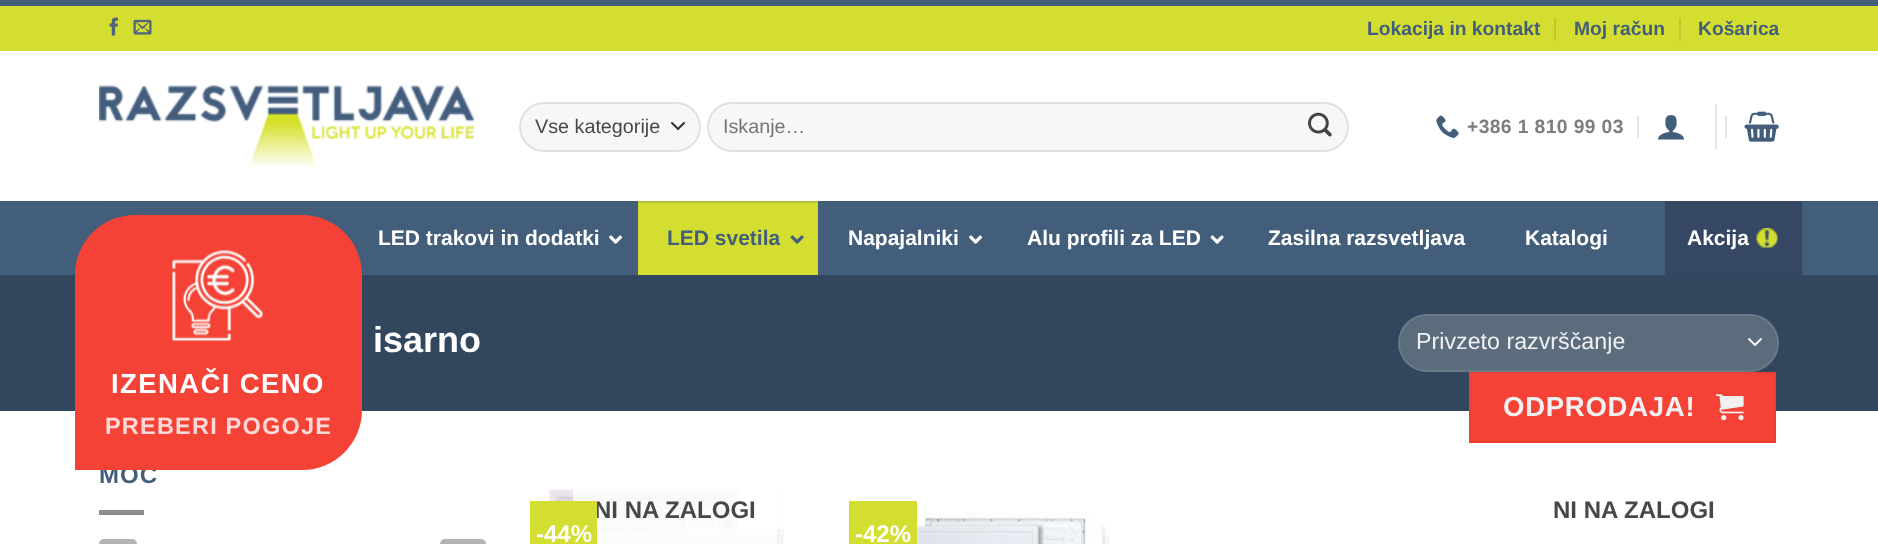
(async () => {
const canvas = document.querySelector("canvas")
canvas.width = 1878
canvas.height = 544
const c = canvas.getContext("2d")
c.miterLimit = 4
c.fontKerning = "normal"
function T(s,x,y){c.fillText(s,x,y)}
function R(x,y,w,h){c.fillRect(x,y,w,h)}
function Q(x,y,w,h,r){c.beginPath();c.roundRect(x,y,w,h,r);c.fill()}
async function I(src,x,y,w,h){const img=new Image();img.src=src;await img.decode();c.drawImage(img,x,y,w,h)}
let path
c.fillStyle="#fff"
R(0,0,1878,544)
c.fillStyle="#d3de30"
R(0,6,1878,45)
c.fillStyle="#425e7b"
R(0,0,1878,6)
await I("1.png",109,17,9,19)
await I("2.png",133,19,19,16)
c.font="bold 19.25px Liberation Sans"
T("Lokacija in kontakt",1367,35)
c.fillStyle="#bec82b"
R(1554,18,2,23)
c.fillStyle="#425e7b"
T("Moj račun",1574,35)
c.fillStyle="#bec82b"
R(1679,18,2,23)
c.fillStyle="#425e7b"
T("Košarica",1698,35)
await I("3.png",99,85,375,82)
c.fillStyle="#f7f7f7"
Q(519,102,182,50,25)
path = new Path2D("M672 123l6 6l6-6")
c.strokeStyle="#333"
c.lineWidth=2
c.lineCap="round"
c.lineJoin="round"
c.stroke(path)
c.beginPath()
c.roundRect(520,103,180,48,24)
c.strokeStyle="#00000017"
c.lineJoin="miter"
c.stroke()
c.font="19.75px Liberation Sans"
c.fillStyle="#474747"
T("Vse kategorije",535,133)
c.fillStyle="#f7f7f7"
Q(707,102,642,50,25)
c.beginPath()
c.roundRect(708,103,640,48,24)
c.stroke()
c.fillStyle="#757575"
T("Iskanje…",723,133)
await I("4.png",1308,112,24,25)
await I("5.png",1436,115,23,23)
c.letterSpacing="0.4px"
c.font="bold 19.25px Liberation Sans"
c.fillStyle="#7d7d7d"
T("+386 1 810 99 03",1467,133)
c.fillStyle="#e6e6e6"
R(1637,116,2,22)
await I("6.png",1657,115,28,25)
R(1715,104,2,45)
R(1725,116,2,22)
await I("7.png",1744,111,35,31)
c.fillStyle="#425e7b"
R(0,201,1878,74)
c.fillStyle="#425b76"
R(99,201,1566,2)
c.letterSpacing="0px"
c.font="bold 21px Liberation Sans"
c.fillStyle="#fff"
T("LED trakovi in dodatki",378,245)
await I("8.png",609,235,14,9)
c.fillStyle="#d3de30"
R(638,203,180,72)
c.fillStyle="#b8c339"
R(638,201,180,2)
c.fillStyle="#425e7b"
T("LED svetila",667,245)
await I("9.png",790,235,14,9)
c.fillStyle="#fff"
T("Napajalniki",848,245)
await I("8.png",969,235,14,9)
T("Alu profili za LED",1027,245)
await I("10.png",1210,235,14,9)
T("Zasilna razsvetljava",1268,245)
T("Katalogi",1525,245)
c.fillStyle="#354763"
R(1665,201,137,74)
c.fillStyle="#fff"
T("Akcija",1687,245)
await I("11.png",1756,228,22,20)
c.fillStyle="#32475d"
R(0,275,1878,136)
c.font="bold 36px Liberation Sans"
c.fillStyle="#fff"
T("isarno",373,352)
c.fillStyle="#5b6c7d"
Q(1398,314,381,58,29)
path = new Path2D("M1749 339l6 6l6-6")
c.strokeStyle="#fff"
c.lineJoin="round"
c.stroke(path)
c.beginPath()
c.roundRect(1399,315,379,56,28)
c.strokeStyle="#ffffff17"
c.lineJoin="miter"
c.stroke()
c.font="23.25px Liberation Sans"
c.fillStyle="#f1f1f1"
T("Privzeto razvrščanje",1416,349)
c.letterSpacing="1px"
c.font="bold 24px Liberation Sans"
c.fillStyle="#425e7b"
T("MOČ",99,483)
c.fillStyle="#f44336"
c.beginPath()
c.roundRect(75,215,287,255,[60,60,60,0])
c.fill()
await I("12.png",172,250,91,91)
c.letterSpacing="1.4px"
c.font="bold 27.5px Liberation Sans"
c.fillStyle="#fff"
T("IZENAČI CENO",111,393)
c.letterSpacing="1.2px"
c.font="bold 23.5px Liberation Sans"
c.fillStyle="#fdd9d7"
T("PREBERI POGOJE",105,434)
c.fillStyle="#f44336"
c.beginPath()
c.rect(1470,373,305,69)
c.fill()
c.strokeStyle="#e84033"
c.stroke()
c.letterSpacing="0.75px"
c.font="bold 27.5px Liberation Sans"
c.fillStyle="#f1f1f1"
T("ODPRODAJA!",1503,416)
await I("13.png",1716,394,28,27)
c.fillStyle="#8c8c8c"
R(99,510,45,5)
c.fillStyle="#b3b3b3"
Q(99,539,38,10,5)
Q(440,539,46,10,5)
await I("14.png",548,488,236,56)
c.fillStyle="#ffffffcf"
R(573,488,204,56)
c.letterSpacing="0px"
c.font="bold 24px Liberation Sans"
c.fillStyle="#474747"
T("NI NA ZALOGI",594,518)
c.fillStyle="#d3de30"
R(530,501,67,43)
c.fillStyle="#fff"
T("-44%",536,542)
c.fillStyle="#474747"
T("NI NA ZALOGI",1553,518)
c.fillStyle="#d3de30"
R(849,501,68,43)
c.fillStyle="#fff"
T("-42%",855,542)
await I("15.png",917,512,193,32)
})()
